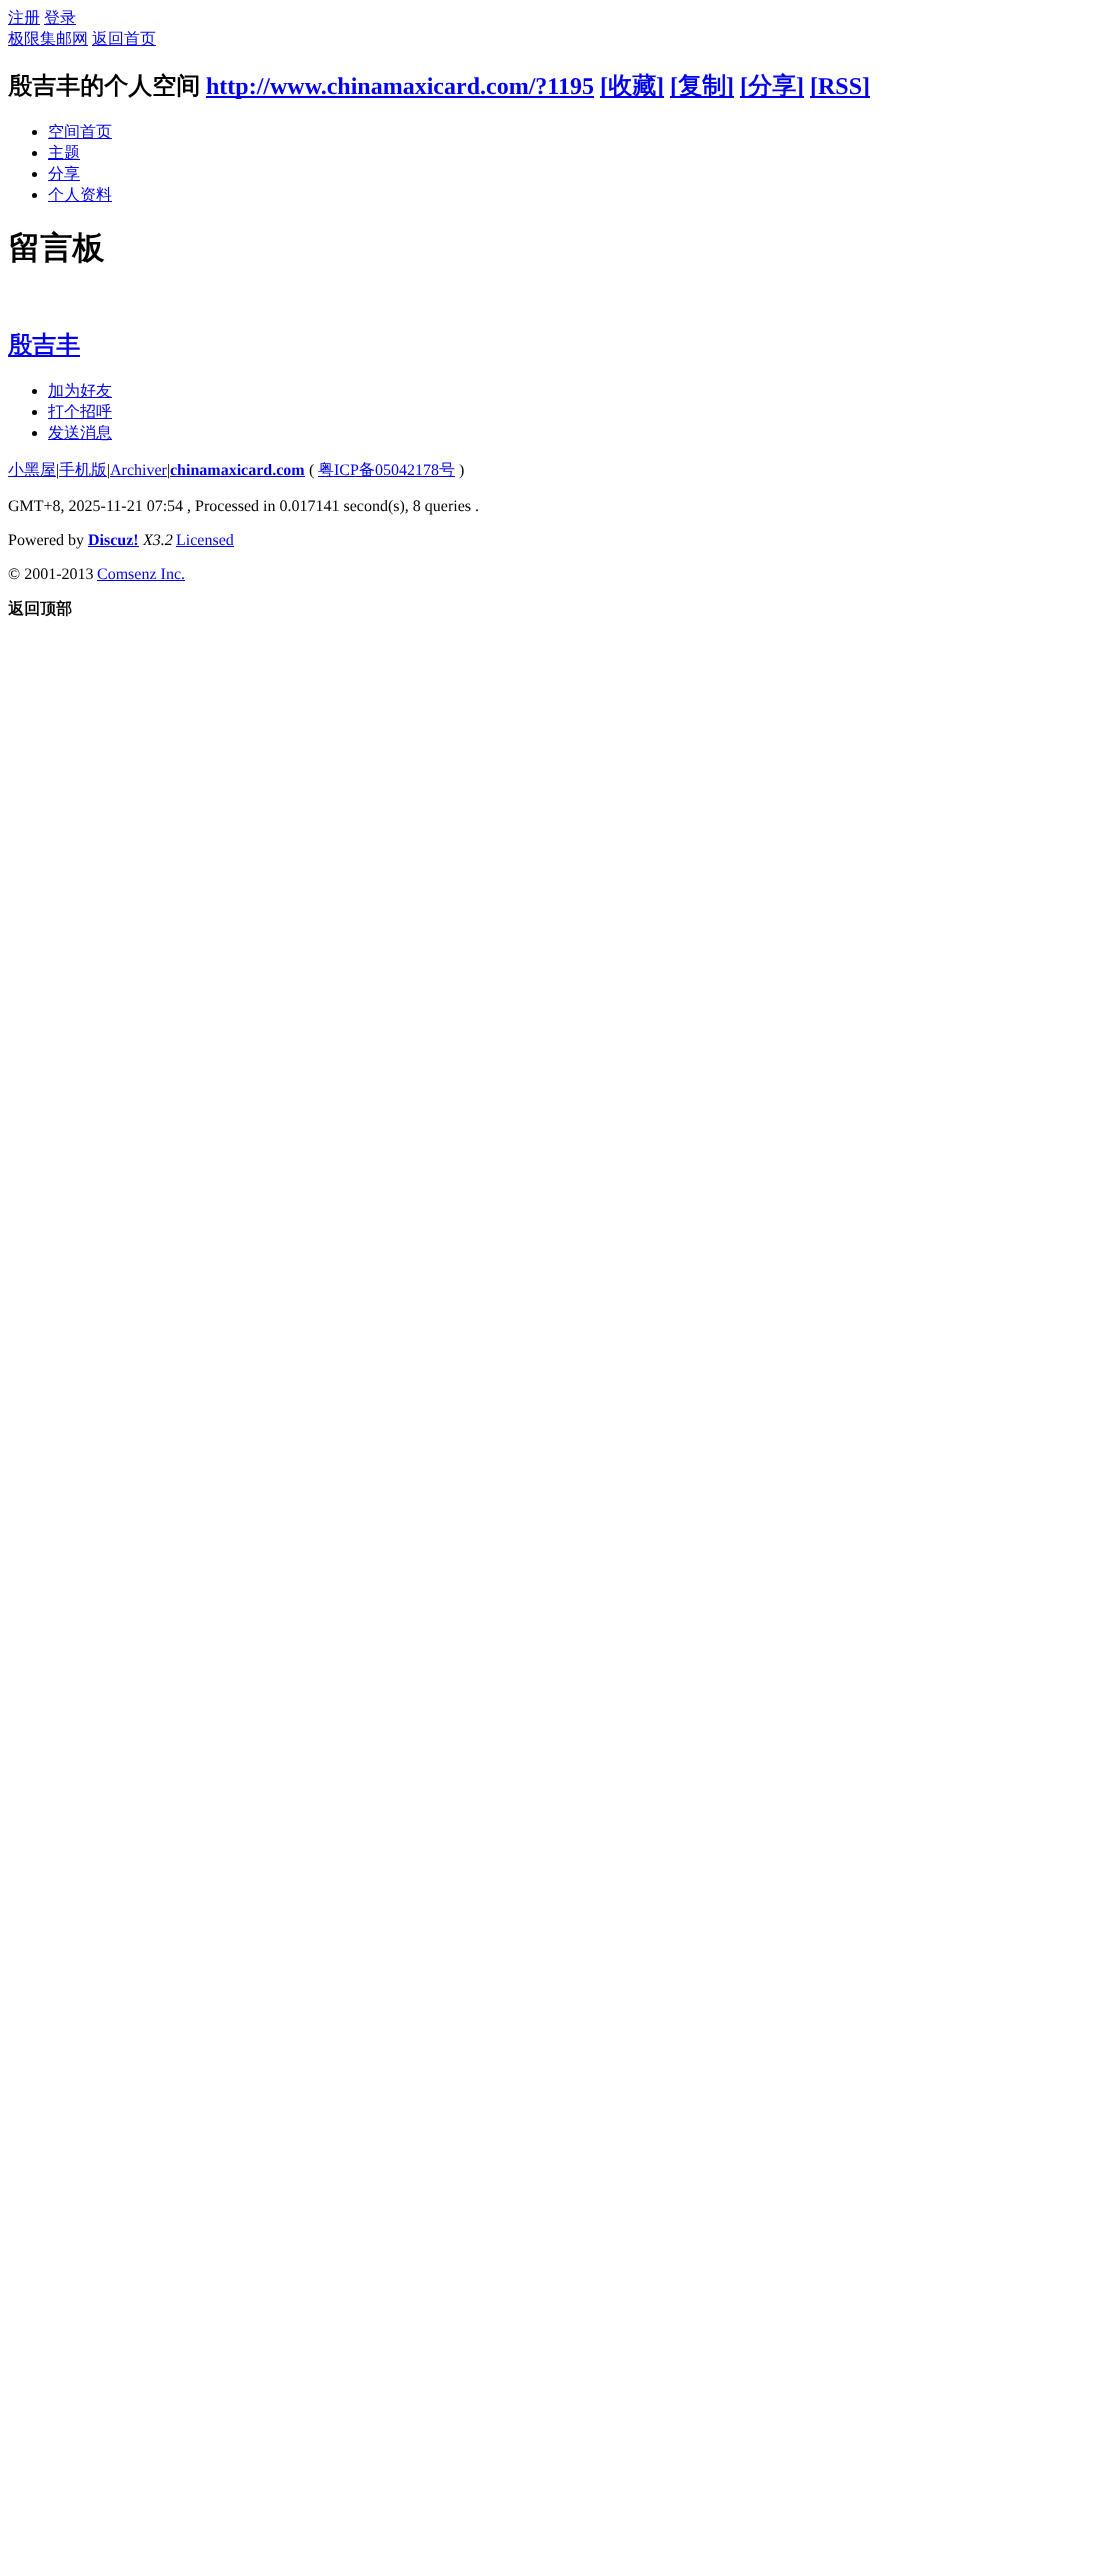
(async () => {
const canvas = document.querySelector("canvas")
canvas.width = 1119
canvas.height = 2551
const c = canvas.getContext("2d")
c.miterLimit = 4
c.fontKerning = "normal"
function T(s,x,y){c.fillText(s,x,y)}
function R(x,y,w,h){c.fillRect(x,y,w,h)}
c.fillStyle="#fff"
R(0,0,1119,2551)
c.fillStyle="#00e"
R(8,24,32,1)
c.font="500 16px WenQuanYi Zen Hei"
T("注册",8,23)
R(44,24,32,1)
T("登录",44,23)
R(8,45,80,1)
T("极限集邮网",8,44)
R(92,45,64,1)
T("返回首页",92,44)
c.font="bold 24px WenQuanYi Zen Hei"
c.fillStyle="#000"
T("殷吉丰的个人空间",8,94)
c.fillStyle="#00e"
R(206,96,388,2)
c.font="bold 24px Liberation Serif"
T("http://www.chinamaxicard.com/?1195",206,94)
R(600,96,64,2)
T("[",600,94)
c.font="bold 24px WenQuanYi Zen Hei"
T("收藏",608,94)
c.font="bold 24px Liberation Serif"
T("]",656,94)
R(670,96,64,2)
T("[",670,94)
c.font="bold 24px WenQuanYi Zen Hei"
T("复制",678,94)
c.font="bold 24px Liberation Serif"
T("]",726,94)
R(740,96,64,2)
T("[",740,94)
c.font="bold 24px WenQuanYi Zen Hei"
T("分享",748,94)
c.font="bold 24px Liberation Serif"
T("]",796,94)
R(810,96,60,2)
T("[RSS]",810,94)
c.fillStyle="#000"
c.beginPath()
c.arc(34.5,132.5,2.5,0,7)
c.fill()
c.fillStyle="#00e"
R(48,138,64,1)
c.font="500 16px WenQuanYi Zen Hei"
T("空间首页",48,137)
c.fillStyle="#000"
c.beginPath()
c.arc(34.5,153.5,2.5,0,7)
c.fill()
c.fillStyle="#00e"
R(48,159,32,1)
T("主题",48,158)
c.fillStyle="#000"
c.beginPath()
c.arc(34.5,174.5,2.5,0,7)
c.fill()
c.fillStyle="#00e"
R(48,180,32,1)
T("分享",48,179)
c.fillStyle="#000"
c.beginPath()
c.arc(34.5,195.5,2.5,0,7)
c.fill()
c.fillStyle="#00e"
R(48,201,64,1)
T("个人资料",48,200)
c.font="bold 32px WenQuanYi Zen Hei"
c.fillStyle="#000"
T("留言板",8,259)
c.fillStyle="#00e"
R(8,355,72,2)
c.font="bold 24px WenQuanYi Zen Hei"
T("殷吉丰",8,353)
c.fillStyle="#000"
c.beginPath()
c.arc(34.5,391.5,2.5,0,7)
c.fill()
c.fillStyle="#00e"
R(48,397,64,1)
c.font="500 16px WenQuanYi Zen Hei"
T("加为好友",48,396)
c.fillStyle="#000"
c.beginPath()
c.arc(34.5,412.5,2.5,0,7)
c.fill()
c.fillStyle="#00e"
R(48,418,64,1)
T("打个招呼",48,417)
c.fillStyle="#000"
c.beginPath()
c.arc(34.5,433.5,2.5,0,7)
c.fill()
c.fillStyle="#00e"
R(48,439,64,1)
T("发送消息",48,438)
R(8,476,48,1)
T("小黑屋",8,475)
c.font="16px Liberation Serif"
c.fillStyle="#000"
T("|",56,475)
c.fillStyle="#00e"
R(59,476,48,1)
c.font="500 16px WenQuanYi Zen Hei"
T("手机版",59,475)
c.font="16px Liberation Serif"
c.fillStyle="#000"
T("|",107,475)
c.fillStyle="#00e"
T("Archiver",110,475)
R(110,476,57,1)
c.fillStyle="#000"
T("|",167,475)
c.font="bold 16px Liberation Serif"
c.fillStyle="#00e"
T("chinamaxicard.com",170,475)
R(170,476,135,1)
c.font="16px Liberation Serif"
c.fillStyle="#000"
T("(",309,475)
c.fillStyle="#00e"
R(318,476,137,1)
c.font="500 16px WenQuanYi Zen Hei"
T("粤",318,475)
c.font="16px Liberation Serif"
T("ICP",334,475)
c.font="500 16px WenQuanYi Zen Hei"
T("备",359,475)
c.font="16px Liberation Serif"
T("05042178",375,475)
c.font="500 16px WenQuanYi Zen Hei"
T("号",439,475)
c.font="16px Liberation Serif"
c.fillStyle="#000"
T(")",459,475)
T("GMT+8, 2025-11-21 07:54 , Processed in 0.017141 second(s), 8 queries .",8,511)
T("Powered by",8,545)
c.font="bold 16px Liberation Serif"
c.fillStyle="#00e"
T("Discuz!",88,545)
R(88,546,51,1)
c.font="italic 16px Liberation Serif"
c.fillStyle="#000"
T("X3.2",143,545)
c.font="16px Liberation Serif"
c.fillStyle="#00e"
T("Licensed",176,545)
R(176,546,58,1)
c.fillStyle="#000"
T("© 2001-2013",8,579)
c.fillStyle="#00e"
T("Comsenz Inc.",97,579)
R(97,580,88,1)
c.font="bold 16px WenQuanYi Zen Hei"
c.fillStyle="#000"
T("返回顶部",8,614)
})()
